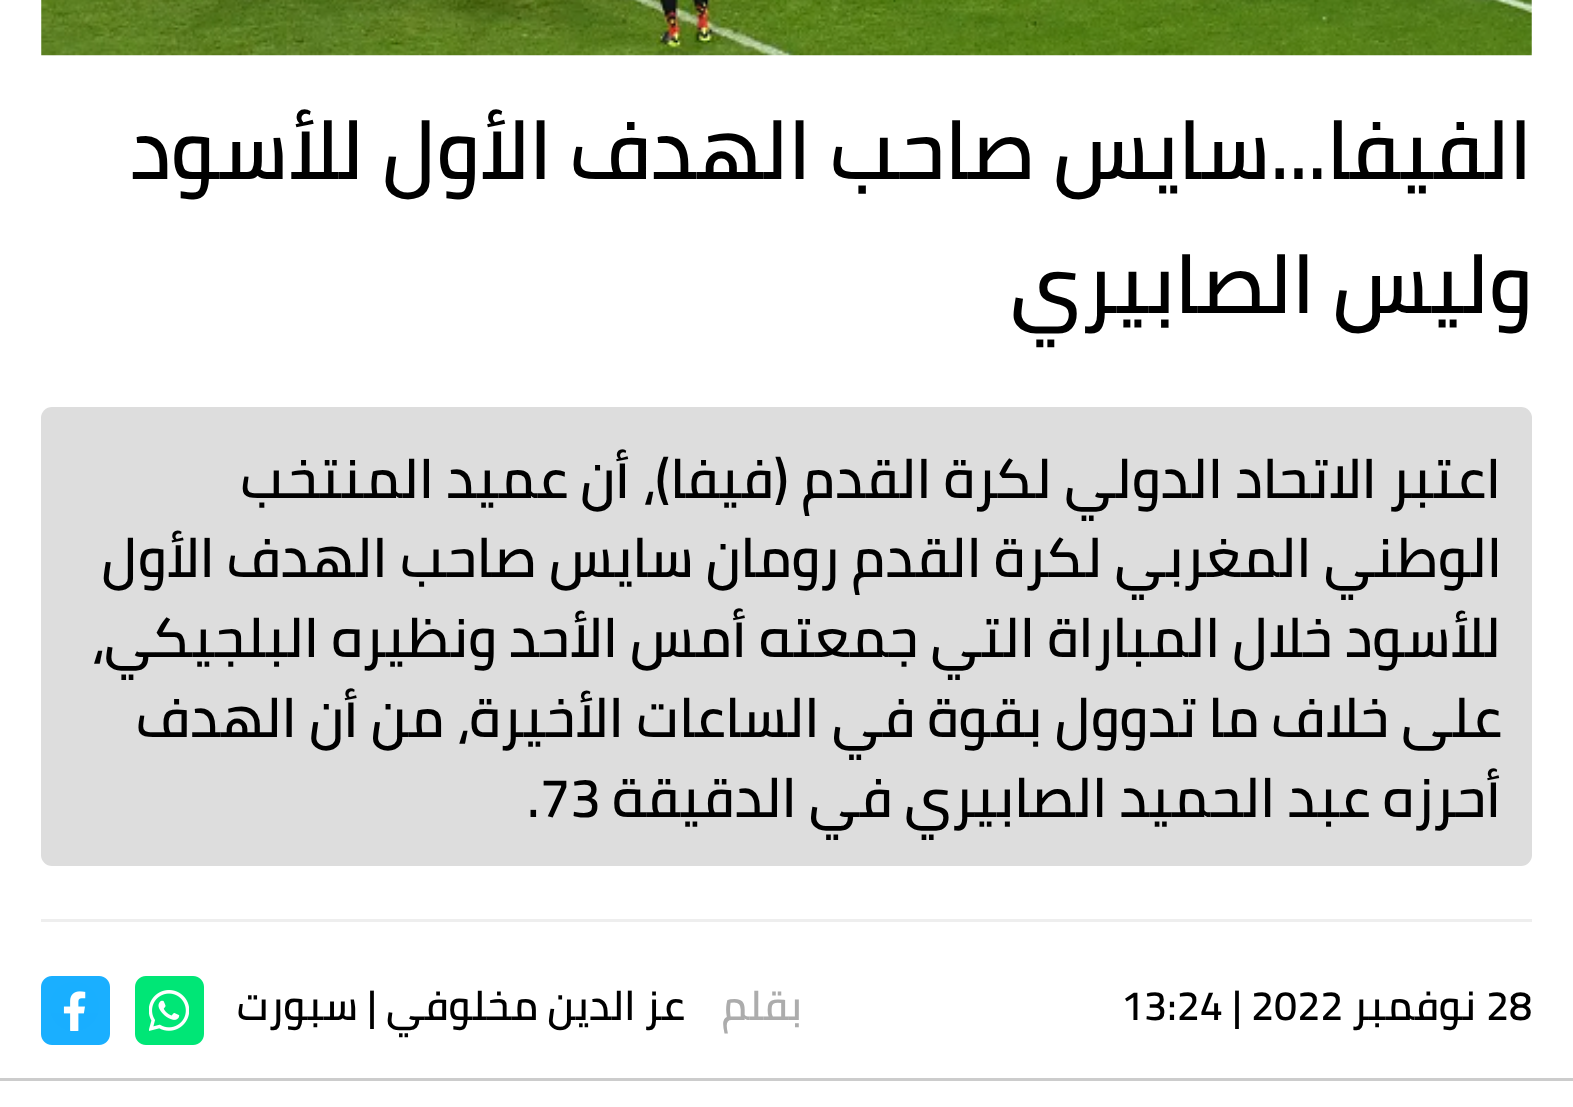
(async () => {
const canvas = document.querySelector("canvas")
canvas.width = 1573
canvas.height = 1107
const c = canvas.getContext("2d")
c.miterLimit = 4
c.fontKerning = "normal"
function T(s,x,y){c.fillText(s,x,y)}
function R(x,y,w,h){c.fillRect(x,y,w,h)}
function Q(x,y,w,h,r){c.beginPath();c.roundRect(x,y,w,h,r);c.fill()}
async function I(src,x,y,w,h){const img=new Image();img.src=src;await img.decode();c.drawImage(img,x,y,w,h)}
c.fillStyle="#fff"
R(0,0,1573,1107)
await I("1.png",41,0,1491,56)
c.direction="rtl"
c.font="600 82.5px Cairo"
c.fillStyle="#000"
T("الفيفا...سايس صاحب الهدف الأول للأسود",1532,179)
T("وليس الصابيري",1532,313)
c.fillStyle="#ddd"
Q(41,407,1491,459,11)
c.font="600 55px Cairo"
c.fillStyle="#000"
T("اعتبر الاتحاد الدولي لكرة القدم (فيفا)، أن عميد المنتخب",1501,498)
T("الوطني المغربي لكرة القدم رومان سايس صاحب الهدف الأول",1502,577)
T("للأسود خلال المباراة التي جمعته أمس الأحد ونظيره البلجيكي،",1501,657)
T("على خلاف ما تدوول بقوة في الساعات الأخيرة، من أن الهدف",1502,737)
T("أحرزه عبد الحميد الصابيري في الدقيقة",1501,817)
c.direction="ltr"
T(".73",527,817)
c.fillStyle="#eee"
R(41,919,1491,3)
c.font="600 41.25px Cairo"
c.fillStyle="#000"
T("28",1486,1020)
c.direction="rtl"
T("نوفمبر",1476,1020)
c.direction="ltr"
T("13:24 | 2022",1121,1020)
c.direction="rtl"
c.fillStyle="#acacac"
T("بقلم",802,1020)
c.fillStyle="#000"
T("عز الدين مخلوفي",685,1020)
T("| سبورت",377,1020)
await I("2.png",135,976,69,69)
await I("3.png",41,976,69,69)
c.fillStyle="#ccc"
R(0,1078,1573,3)
})()
